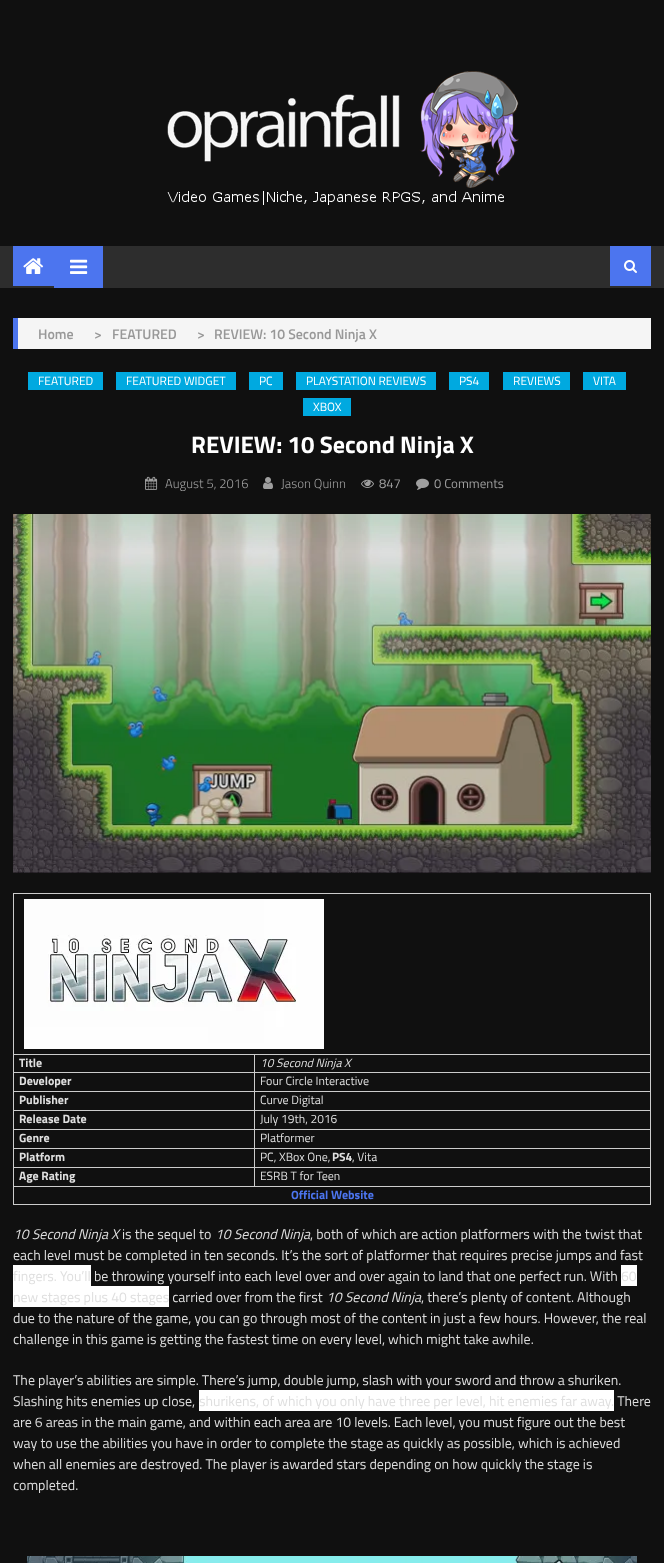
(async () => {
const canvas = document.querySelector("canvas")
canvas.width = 664
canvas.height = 1563
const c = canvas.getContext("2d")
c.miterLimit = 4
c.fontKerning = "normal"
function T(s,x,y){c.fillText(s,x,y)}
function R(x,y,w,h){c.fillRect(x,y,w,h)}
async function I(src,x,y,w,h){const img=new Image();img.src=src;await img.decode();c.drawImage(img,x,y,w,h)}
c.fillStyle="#101010"
R(0,0,664,1563)
await I("1.png",167,71,352,134)
c.fillStyle="#2d2d2d"
R(0,246,664,42)
c.fillStyle="#4c75ef"
R(13,246,41,40)
await I("2.png",23,258,21,16)
R(54,246,49,42)
await I("3.png",70,259,18,15)
R(610,246,41,40)
await I("4.png",624,260,13,13)
c.fillStyle="#f5f5f5"
R(18,318,633,31)
c.fillStyle="#4c75ef"
R(13,318,5,31)
c.font="600 14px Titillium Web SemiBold"
c.fillStyle="#989898"
T("Home",38,339)
T(">",94,339)
T("FEATURED",112,339)
T(">",197,339)
T("REVIEW: 10 Second Ninja X",214,339)
c.fillStyle="#00a9e0"
R(28,372,75,18)
c.font="12px Titillium Web"
c.fillStyle="#fff"
T("FEATURED",38,385)
c.fillStyle="#00a9e0"
R(116,372,120,18)
c.fillStyle="#fff"
T("FEATURED WIDGET",126,385)
c.fillStyle="#00a9e0"
R(249,372,34,18)
c.fillStyle="#fff"
T("PC",259,385)
c.fillStyle="#00a9e0"
R(296,372,140,18)
c.fillStyle="#fff"
T("PLAYSTATION REVIEWS",306,385)
c.fillStyle="#00a9e0"
R(449,372,40,18)
c.fillStyle="#fff"
T("PS4",459,385)
c.fillStyle="#00a9e0"
R(503,372,67,18)
c.fillStyle="#fff"
T("REVIEWS",513,385)
c.fillStyle="#00a9e0"
R(583,372,43,18)
c.fillStyle="#fff"
T("VITA",593,385)
c.fillStyle="#00a9e0"
R(303,398,48,18)
c.fillStyle="#fff"
T("XBOX",313,411)
c.font="bold 24px Titillium Web"
T("REVIEW: 10 Second Ninja X",191,453)
await I("5.png",145,476,13,14)
c.font="300 13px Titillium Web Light"
c.fillStyle="#9f9f9f"
T("August 5, 2016",165,488)
await I("6.png",263,477,10,12)
T("Jason Quinn",281,488)
await I("7.png",361,479,13,9)
c.font="13px Titillium Web"
T("847",379,488)
await I("8.png",416,478,13,12)
T("0 Comments",434,488)
await I("9.png",13,514,638,359)
c.fillStyle="#ccc"
R(13,893,638,1)
R(254,1054,397,1)
R(254,1072,397,1)
R(254,1091,397,1)
R(254,1110,397,1)
R(254,1129,397,1)
R(254,1148,397,1)
R(254,1167,397,1)
R(13,1186,638,1)
R(650,1186,1,19)
R(650,1167,1,20)
R(650,1148,1,20)
R(650,1129,1,20)
R(650,1110,1,20)
R(650,1091,1,20)
R(650,1072,1,20)
R(650,1054,1,19)
R(650,893,1,162)
R(254,1167,1,20)
R(13,1167,242,1)
R(254,1148,1,20)
R(13,1148,242,1)
R(254,1129,1,20)
R(13,1129,242,1)
R(254,1110,1,20)
R(13,1110,242,1)
R(254,1091,1,20)
R(13,1091,242,1)
R(254,1072,1,20)
R(13,1072,242,1)
R(254,1054,1,19)
R(13,1054,242,1)
R(13,1204,638,1)
R(13,1186,1,19)
R(13,1167,1,20)
R(13,1148,1,20)
R(13,1129,1,20)
R(13,1110,1,20)
R(13,1091,1,20)
R(13,1072,1,20)
R(13,1054,1,19)
R(13,893,1,162)
await I("10.png",24,899,300,150)
c.font="bold 12px Titillium Web"
c.fillStyle="#dfdfdf"
T("Title",19,1067)
c.font="italic 12px Titillium Web"
T("10 Second Ninja X",260,1067)
c.font="bold 12px Titillium Web"
T("Developer",19,1085)
c.font="12px Titillium Web"
T("Four Circle Interactive",260,1085)
c.font="bold 12px Titillium Web"
T("Publisher",19,1104)
c.font="12px Titillium Web"
T("Curve Digital",260,1104)
c.font="bold 12px Titillium Web"
T("Release Date",19,1123)
c.font="12px Titillium Web"
T("July 19th, 2016",260,1123)
c.font="bold 12px Titillium Web"
T("Genre",19,1142)
c.font="12px Titillium Web"
T("Platformer",260,1142)
c.font="bold 12px Titillium Web"
T("Platform",19,1161)
c.font="12px Titillium Web"
T("PC, XBox One,",260,1161)
c.font="bold 12px Titillium Web"
T("PS4",332,1161)
c.font="12px Titillium Web"
T(", Vita",352,1161)
c.font="bold 12px Titillium Web"
T("Age Rating",19,1180)
c.font="12px Titillium Web"
T("ESRB T for Teen",260,1180)
c.font="bold 12px Titillium Web"
c.fillStyle="#4c75ef"
T("Official Website",291,1199)
c.font="italic 14px Titillium Web"
c.fillStyle="#dfdfdf"
T("10 Second Ninja X",13,1239)
c.font="14px Titillium Web"
T("is the sequel to",122,1239)
c.font="italic 14px Titillium Web"
T("10 Second Ninja",215,1239)
c.font="14px Titillium Web"
T(", both of which are action platformers with the twist that",310,1239)
T("each level must be completed in ten seconds. It’s the sort of platformer that requires precise jumps and fast",13,1260)
c.fillStyle="#fff"
R(13,1265,78,21)
c.fillStyle="#dfdfdf"
T("fingers. You’ll be throwing yourself into each level over and over again to land that one perfect run. With",13,1281)
c.fillStyle="#fff"
R(621,1265,16,21)
c.fillStyle="#dfdfdf"
T("60",621,1281)
c.fillStyle="#fff"
R(13,1286,156,21)
c.fillStyle="#dfdfdf"
T("new stages plus 40 stages carried over from the first",13,1302)
c.font="italic 14px Titillium Web"
T("10 Second Ninja",326,1302)
c.font="14px Titillium Web"
T(", there’s plenty of content. Although",421,1302)
T("due to the nature of the game, you can go through most of the content in just a few hours. However, the real",13,1323)
T("challenge in this game is getting the fastest time on every level, which might take awhile.",13,1344)
T("The player’s abilities are simple. There’s jump, double jump, slash with your sword and throw a shuriken.",13,1385)
T("Slashing hits enemies up close,",13,1406)
c.fillStyle="#fff"
R(199,1390,415,21)
c.fillStyle="#dfdfdf"
T("shurikens, of which you only have three per level, hit enemies far away. There",199,1406)
T("are 6 areas in the main game, and within each area are 10 levels. Each level, you must figure out the best",13,1427)
T("way to use the abilities you have in order to complete the stage as quickly as possible, which is achieved",13,1448)
T("when all enemies are destroyed. The player is awarded stars depending on how quickly the stage is",13,1469)
T("completed.",13,1490)
await I("11.png",27,1556,610,7)
})()
